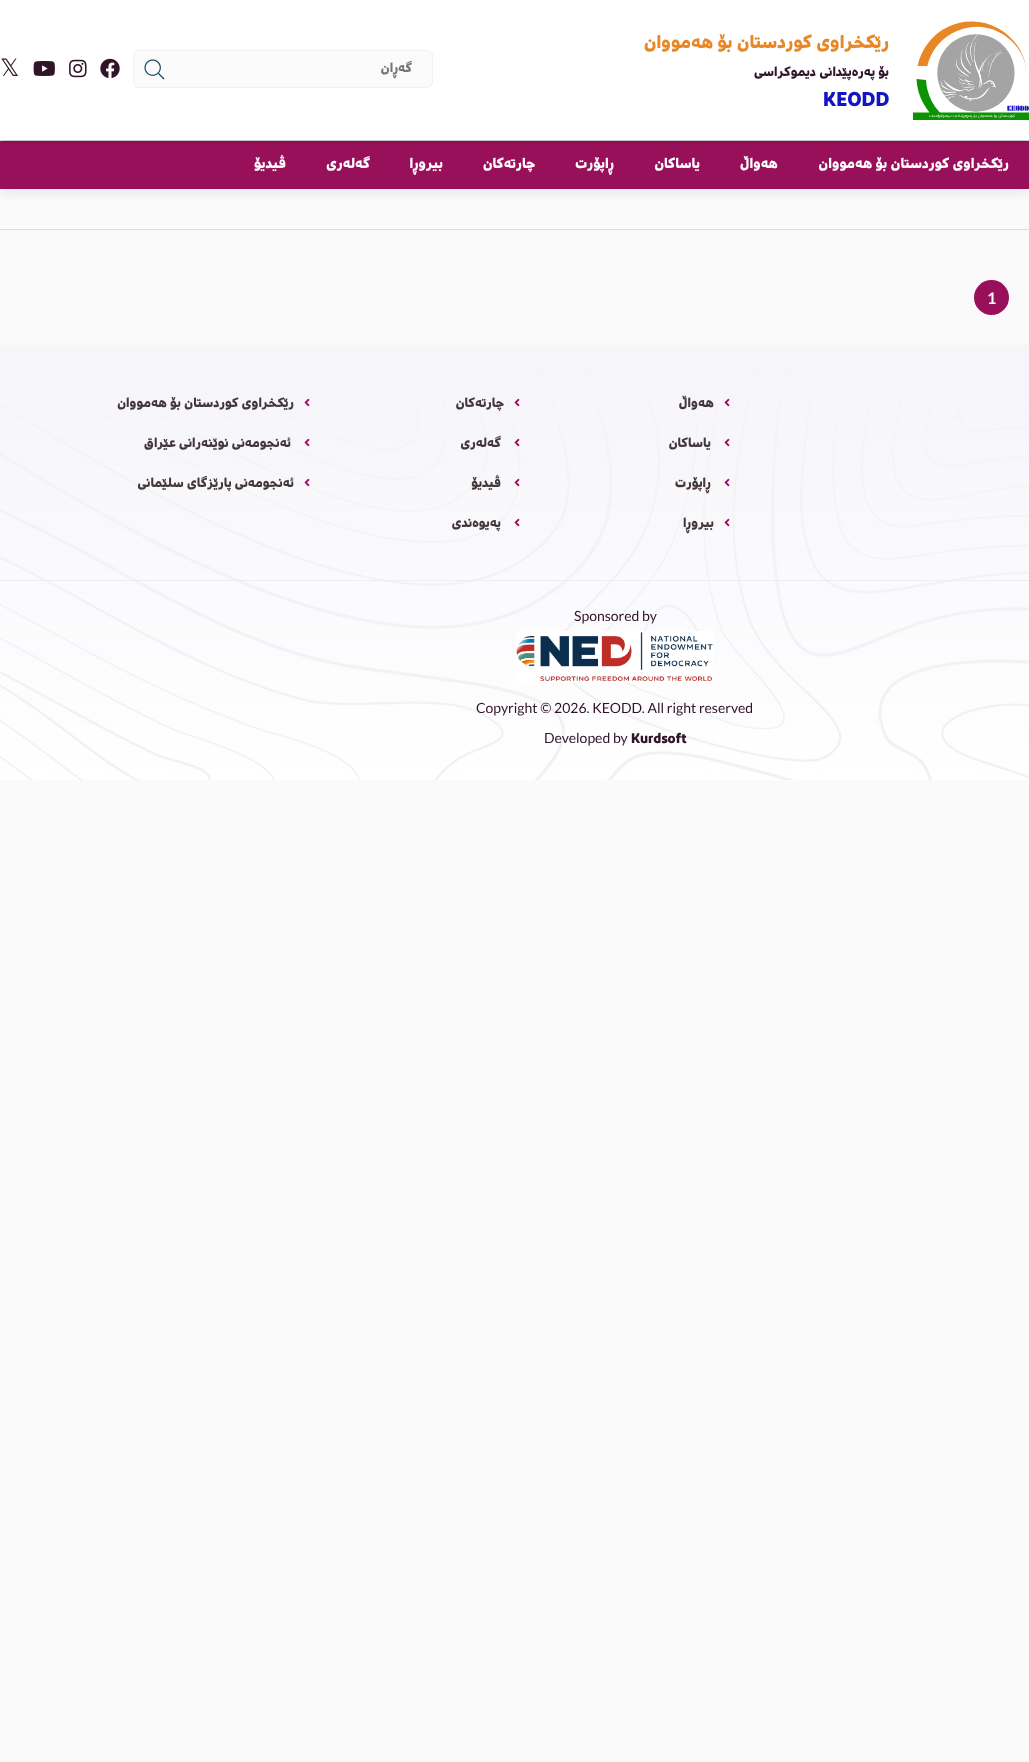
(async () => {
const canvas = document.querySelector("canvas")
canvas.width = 1029
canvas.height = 1762
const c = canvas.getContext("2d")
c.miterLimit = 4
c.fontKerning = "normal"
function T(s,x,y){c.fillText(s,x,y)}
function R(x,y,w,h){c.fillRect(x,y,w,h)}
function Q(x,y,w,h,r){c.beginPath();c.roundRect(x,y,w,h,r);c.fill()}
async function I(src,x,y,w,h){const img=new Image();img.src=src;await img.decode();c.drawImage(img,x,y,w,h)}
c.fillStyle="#fafafa"
R(0,0,1029,1762)
c.fillStyle="#00000017"
c.filter="blur(6px)"
c.beginPath()
c.rect(0,143,1029,49)
c.fill()
c.filter="none"
c.fillStyle="#980f5a"
R(0,141,1029,48)
c.fillStyle="#e5e5e5"
R(0,140,1029,1)
c.fillStyle="#00000026"
c.filter="blur(1.5px)"
c.beginPath()
c.rect(2,2,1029,140)
c.fill()
c.filter="none"
c.fillStyle="#fff"
R(0,0,1029,140)
await I("1.png",913,21,116,99)
c.direction="rtl"
c.font="18px 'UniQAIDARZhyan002'"
c.fillStyle="#e78726"
T("رێكخراوی كوردستان بۆ هەمووان",889,48)
c.font="13px 'UniQAIDARZhyan002'"
c.fillStyle="#301428"
T("بۆ پەرەپێدانی دیموكراسی",889,76)
c.direction="ltr"
c.font="20px 'UniQAIDARZhyan002'"
c.fillStyle="#1414c4"
T("KEODD",823,106)
c.fillStyle="#fbfbfb"
Q(133,50,300,38,6)
await I("2.png",144,59,21,21)
c.beginPath()
c.roundRect(133.5,50.5,299,37,5.5)
c.strokeStyle="#f1f1f1"
c.stroke()
c.direction="rtl"
c.font="13px 'UniQAIDARZhyan002'"
c.fillStyle="#757575"
T("گەڕان",412,72)
await I("3.png",100,58,20,20)
await I("4.png",69,59,18,19)
await I("5.png",33,61,22,15)
c.direction="ltr"
c.font="24px DejaVu Sans"
c.fillStyle="#301428"
T("𝕏",0,76)
c.direction="rtl"
c.font="14px 'UniQAIDARZhyan002'"
c.fillStyle="#fff"
T("رێكخراوی كوردستان بۆ هەمووان",1009,168)
T("هەواڵ",778,168)
T("یاساکان",700,168)
T("ڕاپۆرت",614,168)
T("چارتەکان",535,168)
T("بیروڕا",443,168)
T("گەلەری",370,168)
T("ڤیدیۆ",286,168)
c.fillStyle="#ddd"
R(0,229,1029,1)
c.fillStyle="#980f5a"
c.beginPath()
c.arc(991.5,297.5,17.5,0,7)
c.fill()
c.direction="ltr"
c.font="bold 16px Lato"
c.fillStyle="#fff"
T("1",987,304)
await I("6.png",0,345,1029,435)
await I("7.png",724,398,6,9)
c.direction="rtl"
c.font="13px 'UniQAIDARZhyan002'"
c.fillStyle="#423639"
T("هەواڵ",714,407)
await I("8.png",724,438,6,9)
T("یاساکان",711,447)
await I("9.png",724,478,6,9)
T("ڕاپۆرت",711,487)
await I("10.png",724,518,6,9)
T("بیروڕا",714,527)
await I("11.png",514,398,6,9)
T("چارتەکان",504,407)
await I("12.png",514,438,6,9)
T("گەلەری",501,447)
await I("13.png",514,478,6,9)
T("ڤیدیۆ",501,487)
await I("14.png",514,518,6,9)
T("پەیوەندی",501,527)
await I("7.png",304,398,6,9)
T("رێكخراوی كوردستان بۆ هەمووان",294,407)
await I("8.png",304,438,6,9)
T("ئەنجومەنی نوێنەرانی عێراق",291,447)
await I("15.png",304,478,6,9)
T("ئەنجومەنی پارێزگای سلێمانی",294,487)
c.fillStyle="#eee"
R(0,580,1029,1)
c.direction="ltr"
c.font="14px Lato"
c.fillStyle="#301428"
T("Sponsored by",574,621)
await I("16.png",516,631,197,52)
T("Copyright © 2026. KEODD. All right reserved",476,713)
c.font="14px 'UniQAIDARZhyan002'"
T("Kurdsoft",631,743)
c.font="14px Lato"
T("Developed by",544,743)
})()
